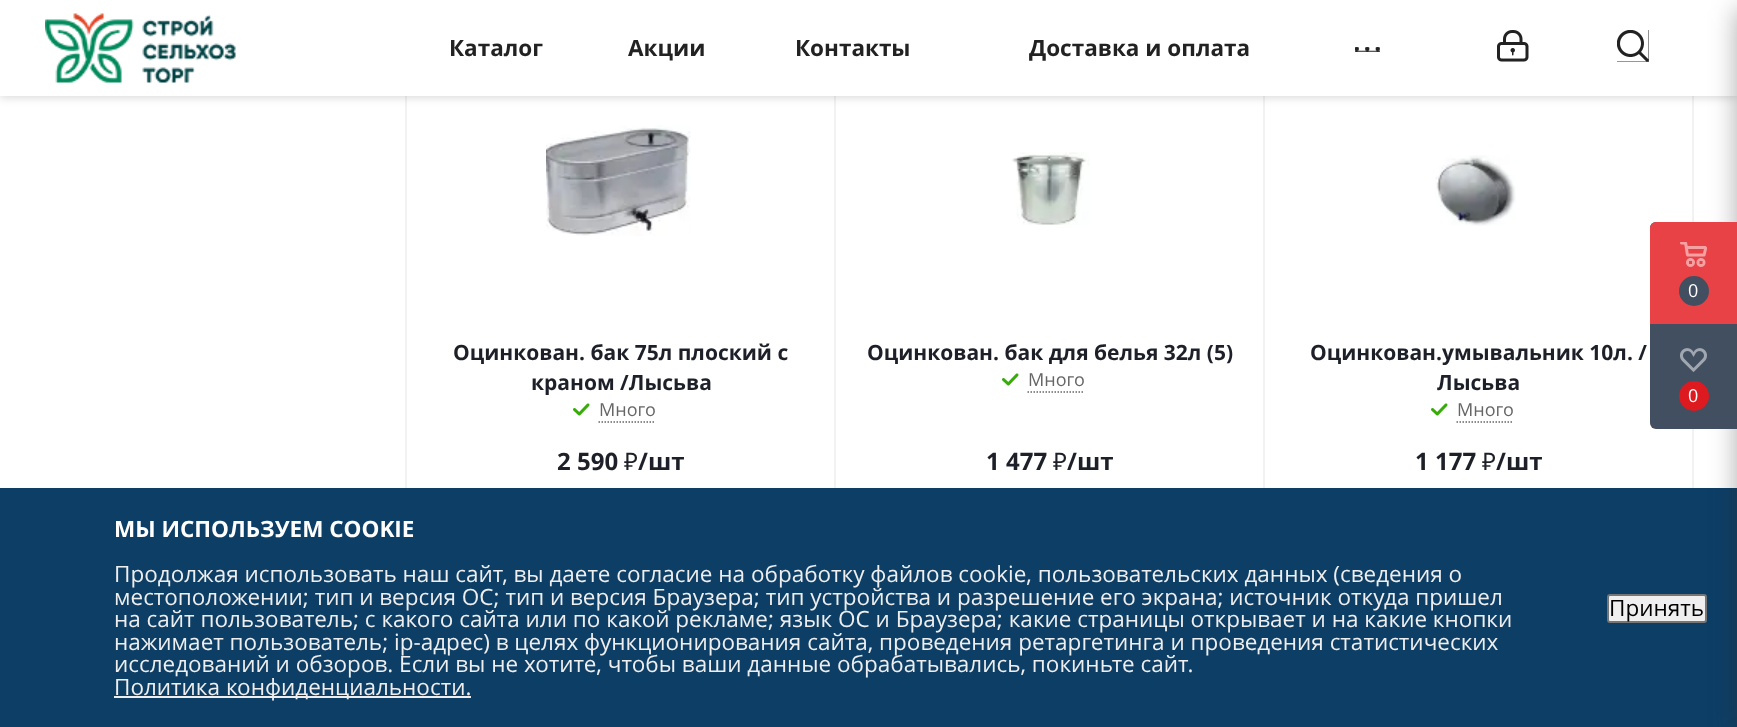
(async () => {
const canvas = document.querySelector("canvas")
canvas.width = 1737
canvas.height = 727
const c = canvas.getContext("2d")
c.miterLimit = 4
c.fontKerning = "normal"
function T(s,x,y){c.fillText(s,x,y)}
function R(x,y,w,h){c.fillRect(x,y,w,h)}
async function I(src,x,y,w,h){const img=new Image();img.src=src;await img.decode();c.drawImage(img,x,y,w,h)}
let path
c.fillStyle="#fff"
R(0,0,1737,727)
c.strokeStyle="#f2f2f2"
c.lineWidth=2
c.strokeRect(406,33,429,490)
c.strokeRect(835,33,429,490)
c.strokeRect(1264,33,429,490)
c.fillStyle="#00000024"
c.filter="blur(4px)"
c.beginPath()
c.rect(0,2,1737,96)
c.fill()
c.filter="none"
c.fillStyle="#fff"
R(0,0,1737,96)
await I("1.png",45,13,191,70)
c.font="bold 22.5px Open Sans"
c.fillStyle="#222"
T("Каталог",449,56)
T("Акции",628,56)
T("Контакты",795,56)
T("Доставка и оплата",1029,56)
R(1355,47,25,5)
await I("2.png",1355,47,25,5)
await I("3.png",1497,30,32,32)
R(1617,30,32,32)
await I("4.png",1617,30,32,32)
await I("5.png",546,125,145,111)
c.font="bold 21px Open Sans"
c.fillStyle="#1d2029"
T("Оцинкован. бак 75л плоский с",453,360)
T("краном /Лысьва",531,390)
await I("6.png",573,403,17,13)
c.font="18px Open Sans"
c.fillStyle="#666"
T("Много",599,416)
path = new Path2D("M598.5 422h57")
c.strokeStyle="#666"
c.lineWidth=1.5
c.setLineDash([1.5,1.5])
c.stroke(path)
c.font="bold 24px Open Sans"
c.fillStyle="#1d2029"
T("2 590",557,470)
c.font="24px Noto Sans"
T("₽",624,470)
c.font="bold 24px Open Sans"
T("/шт",638,470)
await I("7.png",1012,152,78,73)
c.font="bold 21px Open Sans"
T("Оцинкован. бак для белья 32л (5)",867,360)
await I("6.png",1002,373,17,13)
c.font="18px Open Sans"
c.fillStyle="#666"
T("Много",1028,386)
path = new Path2D("M1027.5 392h57")
c.stroke(path)
c.font="bold 24px Open Sans"
c.fillStyle="#1d2029"
T("1 477",986,470)
c.font="24px Noto Sans"
T("₽",1053,470)
c.font="bold 24px Open Sans"
T("/шт",1067,470)
await I("8.png",1435,155,81,71)
c.font="bold 21px Open Sans"
T("Оцинкован.умывальник 10л. /",1310,360)
T("Лысьва",1437,390)
await I("6.png",1431,403,17,13)
c.font="18px Open Sans"
c.fillStyle="#666"
T("Много",1457,416)
path = new Path2D("M1456.5 422h57")
c.stroke(path)
c.font="bold 24px Open Sans"
c.fillStyle="#1d2029"
T("1 177",1415,470)
c.font="24px Noto Sans"
T("₽",1482,470)
c.font="bold 24px Open Sans"
T("/шт",1496,470)
c.fillStyle="#0d3e66"
R(0,488,1737,239)
c.fillStyle="#efefef"
c.beginPath()
c.roundRect(1608,595,98,27,2)
c.fill()
c.strokeStyle="#767676"
c.lineWidth=2
c.setLineDash([])
c.stroke()
c.fillStyle="#2c2c2c66"
c.filter="blur(13.5px)"
c.beginPath()
c.roundRect(1737,9,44,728,3)
c.fill()
c.filter="none"
c.fillStyle="#424f60"
c.beginPath()
c.roundRect(1650,222,87,207,[6,0,0,6])
c.fill()
c.fillStyle="#e84246"
c.beginPath()
c.roundRect(1650,222,87,102,[6,0,0,0])
c.fill()
await I("9.png",1680,242,27,25)
c.fillStyle="#424f60"
c.beginPath()
c.arc(1694,291,15,0,7)
c.fill()
c.font="18px Open Sans"
c.fillStyle="#fff"
T("0",1688,297)
await I("10.png",1680,348,27,24)
c.fillStyle="#dd1a1f"
c.beginPath()
c.arc(1694,396,15,0,7)
c.fill()
c.fillStyle="#fff"
T("0",1688,402)
c.font="bold 22.5px Open Sans"
T("МЫ ИСПОЛЬЗУЕМ COOKIE",114,537)
c.font="22.5px Open Sans"
c.fillStyle="#eee"
T("Продолжая использовать наш сайт, вы даете согласие на обработку файлов cookie, пользовательских данных (сведения о",114,582)
T("местоположении; тип и версия ОС; тип и версия Браузера; тип устройства и разрешение его экрана; источник откуда пришел",114,605)
T("на сайт пользователь; с какого сайта или по какой рекламе; язык ОС и Браузера; какие страницы открывает и на какие кнопки",114,627)
T("нажимает пользователь; ip-адрес) в целях функционирования сайта, проведения ретаргетинга и проведения статистических",114,650)
T("исследований и обзоров. Если вы не хотите, чтобы ваши данные обрабатывались, покиньте сайт.",114,672)
R(114,696,357,2)
T("Политика конфиденциальности.",114,695)
c.fillStyle="#000"
T("Принять",1609,616)
})()
